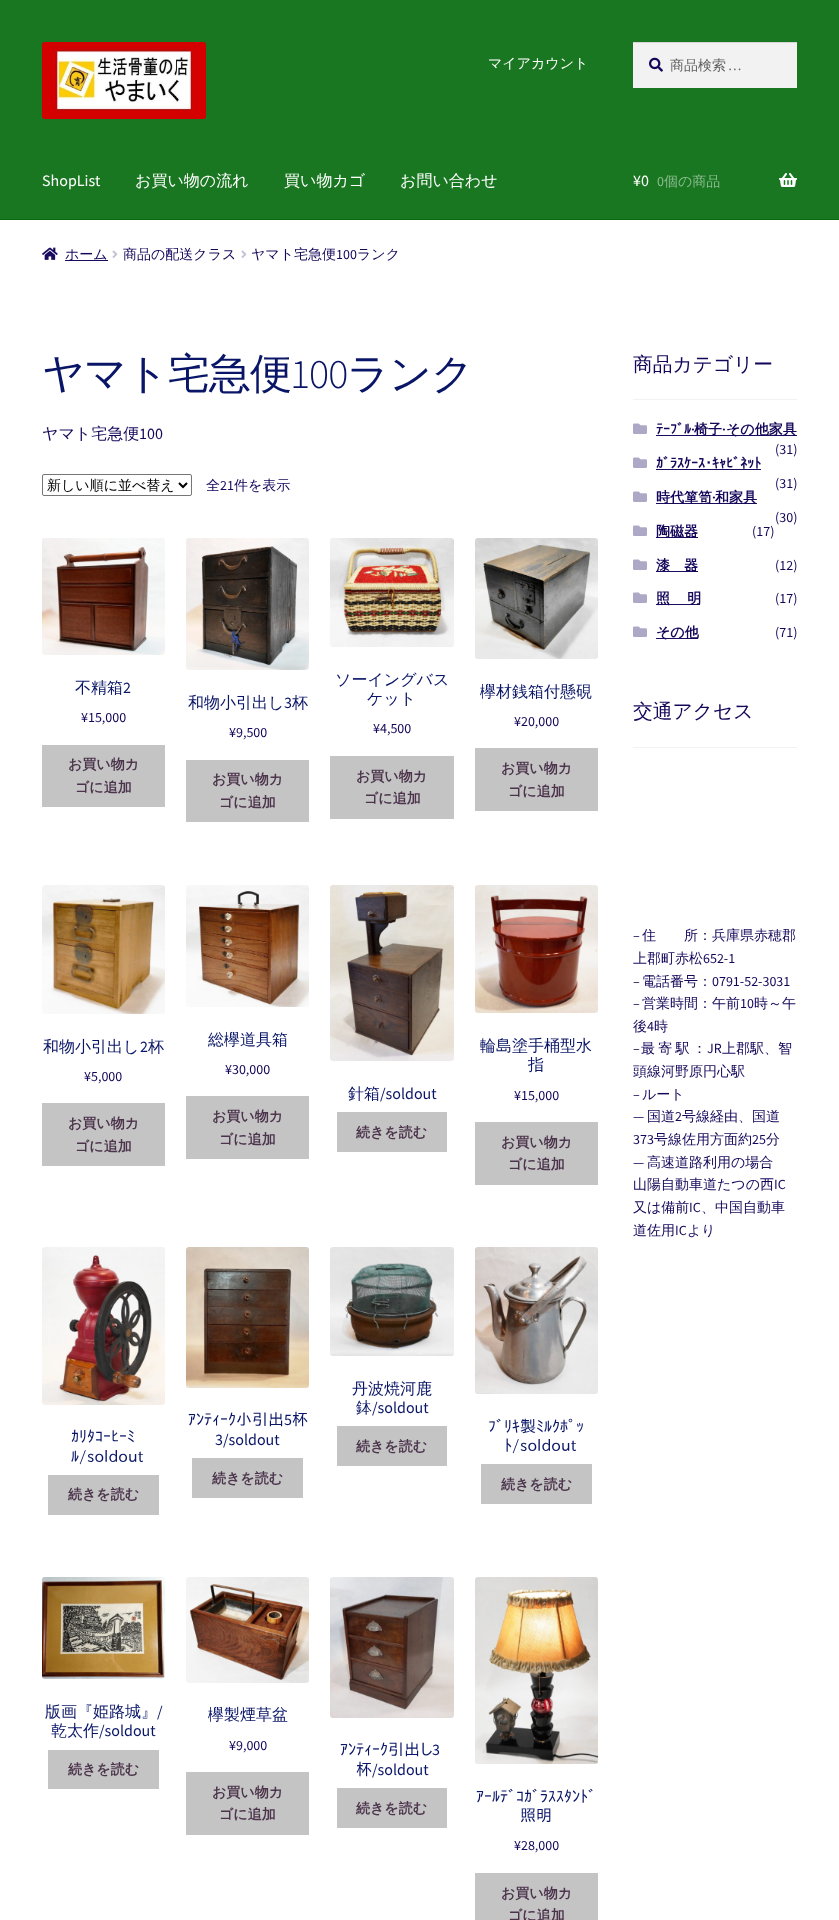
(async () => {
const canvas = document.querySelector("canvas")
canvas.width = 839
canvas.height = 1920
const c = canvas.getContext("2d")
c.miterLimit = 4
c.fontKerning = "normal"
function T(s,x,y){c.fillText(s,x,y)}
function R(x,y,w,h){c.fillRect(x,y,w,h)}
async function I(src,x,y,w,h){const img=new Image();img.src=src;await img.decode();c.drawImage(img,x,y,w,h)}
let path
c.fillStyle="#fff"
R(0,0,839,1920)
c.fillStyle="#197721"
R(0,0,839,219)
c.fillStyle="#0a6812"
R(0,219,839,1)
await I("1.png",42,42,164,77)
c.font="500 14px WenQuanYi Zen Hei"
c.fillStyle="#fff"
T("マイアカウント",488,68)
c.fillStyle="#f2f2f2"
R(633,43,164,45)
await I("2.png",649,57,14,15)
c.fillStyle="#d4d4d4"
R(633,42,164,1)
c.fillStyle="#616161"
T("商品検索",670,70)
c.font="14px Source Sans Pro"
T("…",728,70)
c.font="16px Source Sans Pro"
c.fillStyle="#fff"
T("ShopList",42,186)
c.font="500 16px WenQuanYi Zen Hei"
T("お買い物の流れ",135,186)
T("買い物カゴ",284,186)
T("お問い合わせ",400,186)
c.font="16px Source Sans Pro"
T("¥0",633,186)
c.font="14px Source Sans Pro"
c.fillStyle="#8cbb90"
T("0",657,186)
c.font="500 14px WenQuanYi Zen Hei"
T("個の商品",664,186)
await I("3.png",779,173,18,14)
await I("4.png",42,247,16,13)
c.fillStyle="#190b5e"
R(65,260,43,1)
c.fillStyle="#140659"
T("ホーム",65,259)
await I("5.png",112,250,6,8)
T("商品の配送クラス",123,259)
await I("5.png",241,250,6,8)
T("ヤマト宅急便",251,259)
c.font="14px Source Sans Pro"
T("100",336,259)
c.font="500 14px WenQuanYi Zen Hei"
T("ランク",357,259)
c.letterSpacing="-1px"
c.font="500 42px WenQuanYi Zen Hei"
c.fillStyle="#091566"
T("ヤマト宅急便",42,388)
c.font="300 42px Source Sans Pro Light"
T("100",290,388)
c.font="500 42px WenQuanYi Zen Hei"
T("ランク",347,388)
c.letterSpacing="0px"
c.font="500 16px WenQuanYi Zen Hei"
c.fillStyle="#140659"
T("ヤマト宅急便",42,439)
c.font="16px Source Sans Pro"
T("100",139,439)
c.beginPath()
c.roundRect(42.5,474.5,149,21,1.5)
c.strokeStyle="#767676"
c.stroke()
path = new Path2D("M179 483l4 4l4-4")
c.strokeStyle="#000"
c.lineWidth=2
c.stroke(path)
c.font="500 14px WenQuanYi Zen Hei"
c.fillStyle="#000"
T("新しい順に並べ替え",47,490)
c.fillStyle="#140659"
T("全",206,490)
c.font="14px Source Sans Pro"
T("21",220,490)
c.font="500 14px WenQuanYi Zen Hei"
T("件を表示",234,490)
await I("6.png",42,538,123,117)
c.font="500 16px WenQuanYi Zen Hei"
c.fillStyle="#091566"
T("不精箱",75,693)
c.font="16px Source Sans Pro"
T("2",123,693)
c.font="14px Source Sans Pro"
c.fillStyle="#140659"
T("¥15,000",81,722)
c.fillStyle="#c4c4c4"
R(42,745,123,62)
c.font="bold 14px WenQuanYi Zen Hei"
c.fillStyle="#4c354c"
T("お買い物カ",68,769)
T("ゴに追加",75,792)
await I("7.png",186,538,123,132)
c.font="500 16px WenQuanYi Zen Hei"
c.fillStyle="#091566"
T("和物小引出し",188,708)
c.font="16px Source Sans Pro"
T("3",284,708)
c.font="500 16px WenQuanYi Zen Hei"
T("杯",292,708)
c.font="14px Source Sans Pro"
c.fillStyle="#140659"
T("¥9,500",229,737)
c.fillStyle="#c4c4c4"
R(186,760,123,62)
c.font="bold 14px WenQuanYi Zen Hei"
c.fillStyle="#4c354c"
T("お買い物カ",212,784)
T("ゴに追加",219,807)
await I("8.png",330,538,124,109)
c.font="500 16px WenQuanYi Zen Hei"
c.fillStyle="#091566"
T("ソーイングバス",335,685)
T("ケット",367,704)
c.font="14px Source Sans Pro"
c.fillStyle="#140659"
T("¥4,500",373,733)
c.fillStyle="#c4c4c4"
R(330,756,124,63)
c.font="bold 14px WenQuanYi Zen Hei"
c.fillStyle="#4c354c"
T("お買い物カ",356,781)
T("ゴに追加",364,803)
await I("9.png",475,538,123,121)
c.font="500 16px WenQuanYi Zen Hei"
c.fillStyle="#091566"
T("欅材銭箱付懸硯",480,697)
c.font="14px Source Sans Pro"
c.fillStyle="#140659"
T("¥20,000",514,726)
c.fillStyle="#c4c4c4"
R(475,748,123,63)
c.font="bold 14px WenQuanYi Zen Hei"
c.fillStyle="#4c354c"
T("お買い物カ",501,773)
T("ゴに追加",508,796)
await I("10.png",42,885,123,129)
c.font="500 16px WenQuanYi Zen Hei"
c.fillStyle="#091566"
T("和物小引出し",43,1052)
c.font="16px Source Sans Pro"
T("2",140,1052)
c.font="500 16px WenQuanYi Zen Hei"
T("杯",148,1052)
c.font="14px Source Sans Pro"
c.fillStyle="#140659"
T("¥5,000",84,1081)
c.fillStyle="#c4c4c4"
R(42,1103,123,63)
c.font="bold 14px WenQuanYi Zen Hei"
c.fillStyle="#4c354c"
T("お買い物カ",68,1128)
T("ゴに追加",75,1151)
await I("11.png",186,885,123,122)
c.font="500 16px WenQuanYi Zen Hei"
c.fillStyle="#091566"
T("総欅道具箱",208,1045)
c.font="14px Source Sans Pro"
c.fillStyle="#140659"
T("¥30,000",225,1074)
c.fillStyle="#c4c4c4"
R(186,1096,123,63)
c.font="bold 14px WenQuanYi Zen Hei"
c.fillStyle="#4c354c"
T("お買い物カ",212,1121)
T("ゴに追加",219,1144)
await I("12.png",330,885,124,176)
c.font="500 16px WenQuanYi Zen Hei"
c.fillStyle="#091566"
T("針箱",348,1099)
c.font="16px Source Sans Pro"
T("/soldout",380,1099)
c.fillStyle="#c4c4c4"
R(337,1112,110,40)
c.font="bold 14px WenQuanYi Zen Hei"
c.fillStyle="#4c354c"
T("続きを読む",356,1137)
await I("13.png",475,885,123,128)
c.font="500 16px WenQuanYi Zen Hei"
c.fillStyle="#091566"
T("輪島塗手桶型水",480,1051)
T("指",528,1070)
c.font="14px Source Sans Pro"
c.fillStyle="#140659"
T("¥15,000",514,1100)
c.fillStyle="#c4c4c4"
R(475,1122,123,63)
c.font="bold 14px WenQuanYi Zen Hei"
c.fillStyle="#4c354c"
T("お買い物カ",501,1147)
T("ゴに追加",508,1169)
await I("14.png",42,1247,123,158)
c.font="16px IPAPGothic"
c.fillStyle="#091566"
T("ｶﾘﾀｺｰﾋｰﾐ",71,1442)
T("ﾙ/soldout",71,1462)
c.fillStyle="#c4c4c4"
R(48,1475,111,40)
c.font="bold 14px WenQuanYi Zen Hei"
c.fillStyle="#4c354c"
T("続きを読む",68,1499)
await I("15.png",186,1247,123,141)
c.font="16px IPAPGothic"
c.fillStyle="#091566"
T("ｱﾝﾃｨｰｸ小引出",188,1425)
c.font="16px Source Sans Pro"
T("5",284,1425)
c.font="16px IPAPGothic"
T("杯",292,1425)
c.font="16px Source Sans Pro"
T("3/soldout",215,1445)
c.fillStyle="#c4c4c4"
R(192,1458,111,40)
c.font="bold 14px WenQuanYi Zen Hei"
c.fillStyle="#4c354c"
T("続きを読む",212,1483)
await I("16.png",330,1247,124,109)
c.font="500 16px WenQuanYi Zen Hei"
c.fillStyle="#091566"
T("丹波焼河鹿",352,1394)
T("鉢",356,1413)
c.font="16px Source Sans Pro"
T("/soldout",372,1413)
c.fillStyle="#c4c4c4"
R(337,1426,110,40)
c.font="bold 14px WenQuanYi Zen Hei"
c.fillStyle="#4c354c"
T("続きを読む",356,1451)
await I("17.png",475,1247,123,147)
c.font="16px IPAPGothic"
c.fillStyle="#091566"
T("ﾌﾞﾘｷ製ﾐﾙｸﾎﾟｯ",488,1432)
T("ﾄ/soldout",504,1451)
c.fillStyle="#c4c4c4"
R(481,1464,111,40)
c.font="bold 14px WenQuanYi Zen Hei"
c.fillStyle="#4c354c"
T("続きを読む",501,1489)
await I("18.png",42,1577,123,102)
c.font="500 16px WenQuanYi Zen Hei"
c.fillStyle="#091566"
T("版画『姫路城』",45,1717)
c.font="16px Source Sans Pro"
T("/",157,1717)
c.font="500 16px WenQuanYi Zen Hei"
T("乾太作",51,1736)
c.font="16px Source Sans Pro"
T("/soldout",99,1736)
c.fillStyle="#c4c4c4"
R(48,1750,111,39)
c.font="bold 14px WenQuanYi Zen Hei"
c.fillStyle="#4c354c"
T("続きを読む",68,1774)
await I("19.png",186,1577,123,106)
c.font="500 16px WenQuanYi Zen Hei"
c.fillStyle="#091566"
T("欅製煙草盆",208,1720)
c.font="14px Source Sans Pro"
c.fillStyle="#140659"
T("¥9,000",229,1750)
c.fillStyle="#c4c4c4"
R(186,1772,123,63)
c.font="bold 14px WenQuanYi Zen Hei"
c.fillStyle="#4c354c"
T("お買い物カ",212,1797)
T("ゴに追加",219,1819)
await I("20.png",330,1577,124,141)
c.font="16px IPAPGothic"
c.fillStyle="#091566"
T("ｱﾝﾃｨｰｸ引出し",340,1755)
c.font="16px Source Sans Pro"
T("3",432,1755)
c.font="16px IPAPGothic"
T("杯",356,1775)
c.font="16px Source Sans Pro"
T("/soldout",372,1775)
c.fillStyle="#c4c4c4"
R(337,1788,110,40)
c.font="bold 14px WenQuanYi Zen Hei"
c.fillStyle="#4c354c"
T("続きを読む",356,1813)
await I("21.png",475,1577,123,187)
c.font="16px IPAPGothic"
c.fillStyle="#091566"
T("ｱｰﾙﾃﾞｺｶﾞﾗｽｽﾀﾝﾄﾞ",476,1802)
T("照明",520,1821)
c.font="14px Source Sans Pro"
c.fillStyle="#140659"
T("¥28,000",514,1850)
c.fillStyle="#c4c4c4"
R(475,1873,123,47)
c.font="bold 14px WenQuanYi Zen Hei"
c.fillStyle="#4c354c"
T("お買い物カ",501,1898)
T("ゴに追加",508,1920)
c.fillStyle="#f2f2f2"
R(633,399,164,1)
c.font="500 19.75px WenQuanYi Zen Hei"
c.fillStyle="#140659"
T("商品カテゴリー",633,371)
await I("22.png",633,423,14,11)
c.font="bold 14px IPAPGothic"
T("ﾃｰﾌﾞﾙ",656,434)
c.font="600 14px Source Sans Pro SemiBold"
T("·",691,434)
c.fillStyle="#190b5e"
R(656,435,141,1)
c.font="bold 14px WenQuanYi Zen Hei"
c.fillStyle="#140659"
T("椅子",694,434)
c.font="600 14px Source Sans Pro SemiBold"
T("·",722,434)
c.font="bold 14px WenQuanYi Zen Hei"
T("その他家具",726,434)
c.font="14px Source Sans Pro"
T("(31)",775,454)
await I("22.png",633,457,14,11)
c.font="bold 14px IPAPGothic"
T("ｶﾞﾗｽｹｰｽ・ｷｬﾋﾞﾈｯﾄ",656,468)
c.fillStyle="#190b5e"
R(656,469,105,1)
c.font="14px Source Sans Pro"
c.fillStyle="#140659"
T("(31)",775,488)
await I("22.png",633,491,14,11)
c.fillStyle="#190b5e"
R(656,503,101,1)
c.font="bold 14px WenQuanYi Zen Hei"
c.fillStyle="#140659"
T("時代箪笥",656,502)
c.font="600 14px Source Sans Pro SemiBold"
T("·",712,502)
c.font="bold 14px WenQuanYi Zen Hei"
T("和家具",715,502)
c.font="14px Source Sans Pro"
T("(30)",775,522)
await I("22.png",633,525,14,11)
c.fillStyle="#190b5e"
R(656,537,42,1)
c.font="bold 14px WenQuanYi Zen Hei"
c.fillStyle="#140659"
T("陶磁器",656,536)
c.font="14px Source Sans Pro"
T("(17)",752,536)
await I("22.png",633,559,14,11)
c.fillStyle="#190b5e"
R(656,571,42,1)
c.font="bold 14px WenQuanYi Zen Hei"
c.fillStyle="#140659"
T("漆　器",656,570)
c.font="14px Source Sans Pro"
T("(12)",775,570)
await I("22.png",633,592,14,11)
c.fillStyle="#190b5e"
R(656,604,44,1)
c.wordSpacing="-1px"
c.font="bold 14px WenQuanYi Zen Hei"
c.fillStyle="#140659"
T("照 　明",656,603)
c.wordSpacing="0px"
c.font="14px Source Sans Pro"
T("(17)",775,603)
await I("22.png",633,626,14,11)
c.fillStyle="#190b5e"
R(656,638,42,1)
c.font="bold 14px WenQuanYi Zen Hei"
c.fillStyle="#140659"
T("その他",656,637)
c.font="14px Source Sans Pro"
T("(71)",775,637)
c.fillStyle="#f2f2f2"
R(633,747,164,1)
c.font="500 19.75px WenQuanYi Zen Hei"
c.fillStyle="#140659"
T("交通アクセス",633,718)
c.font="14px Source Sans Pro"
T("–",633,940)
c.font="500 14px WenQuanYi Zen Hei"
T("住　　所：兵庫県赤穂郡",642,940)
T("上郡町赤松",633,963)
c.font="14px Source Sans Pro"
T("652-1",703,963)
T("–",633,986)
c.font="500 14px WenQuanYi Zen Hei"
T("電話番号：",642,986)
c.font="14px Source Sans Pro"
T("0791-52-3031",712,986)
T("–",633,1008)
c.font="500 14px WenQuanYi Zen Hei"
T("営業時間：午前",642,1008)
c.font="14px Source Sans Pro"
T("10",740,1008)
c.font="500 14px WenQuanYi Zen Hei"
T("時～午",754,1008)
T("後",633,1031)
c.font="14px Source Sans Pro"
T("4",647,1031)
c.font="500 14px WenQuanYi Zen Hei"
T("時",654,1031)
c.font="14px Source Sans Pro"
T("–",633,1053)
c.wordSpacing="-1px"
c.font="500 14px WenQuanYi Zen Hei"
T("最 寄 駅 ：",641,1053)
c.wordSpacing="0px"
c.font="14px Source Sans Pro"
T("JR",707,1053)
c.font="500 14px WenQuanYi Zen Hei"
T("上郡駅、智",722,1053)
T("頭線河野原円心駅",633,1076)
c.font="14px Source Sans Pro"
T("–",633,1099)
c.font="500 14px WenQuanYi Zen Hei"
T("ルート",642,1099)
c.font="14px Source Sans Pro"
T("—",633,1121)
c.font="500 14px WenQuanYi Zen Hei"
T("国道",647,1121)
c.font="14px Source Sans Pro"
T("2",675,1121)
c.font="500 14px WenQuanYi Zen Hei"
T("号線経由、国道",682,1121)
c.font="14px Source Sans Pro"
T("373",633,1144)
c.font="500 14px WenQuanYi Zen Hei"
T("号線佐用方面約",654,1144)
c.font="14px Source Sans Pro"
T("25",752,1144)
c.font="500 14px WenQuanYi Zen Hei"
T("分",766,1144)
c.font="14px Source Sans Pro"
T("—",633,1167)
c.font="500 14px WenQuanYi Zen Hei"
T("高速道路利用の場合",647,1167)
T("山陽自動車道たつの西",633,1189)
c.font="14px Source Sans Pro"
T("IC",774,1189)
c.font="500 14px WenQuanYi Zen Hei"
T("又は備前",633,1212)
c.font="14px Source Sans Pro"
T("IC",689,1212)
c.font="500 14px WenQuanYi Zen Hei"
T("、中国自動車",701,1212)
T("道佐用",633,1235)
c.font="14px Source Sans Pro"
T("IC",675,1235)
c.font="500 14px WenQuanYi Zen Hei"
T("より",687,1235)
})()
